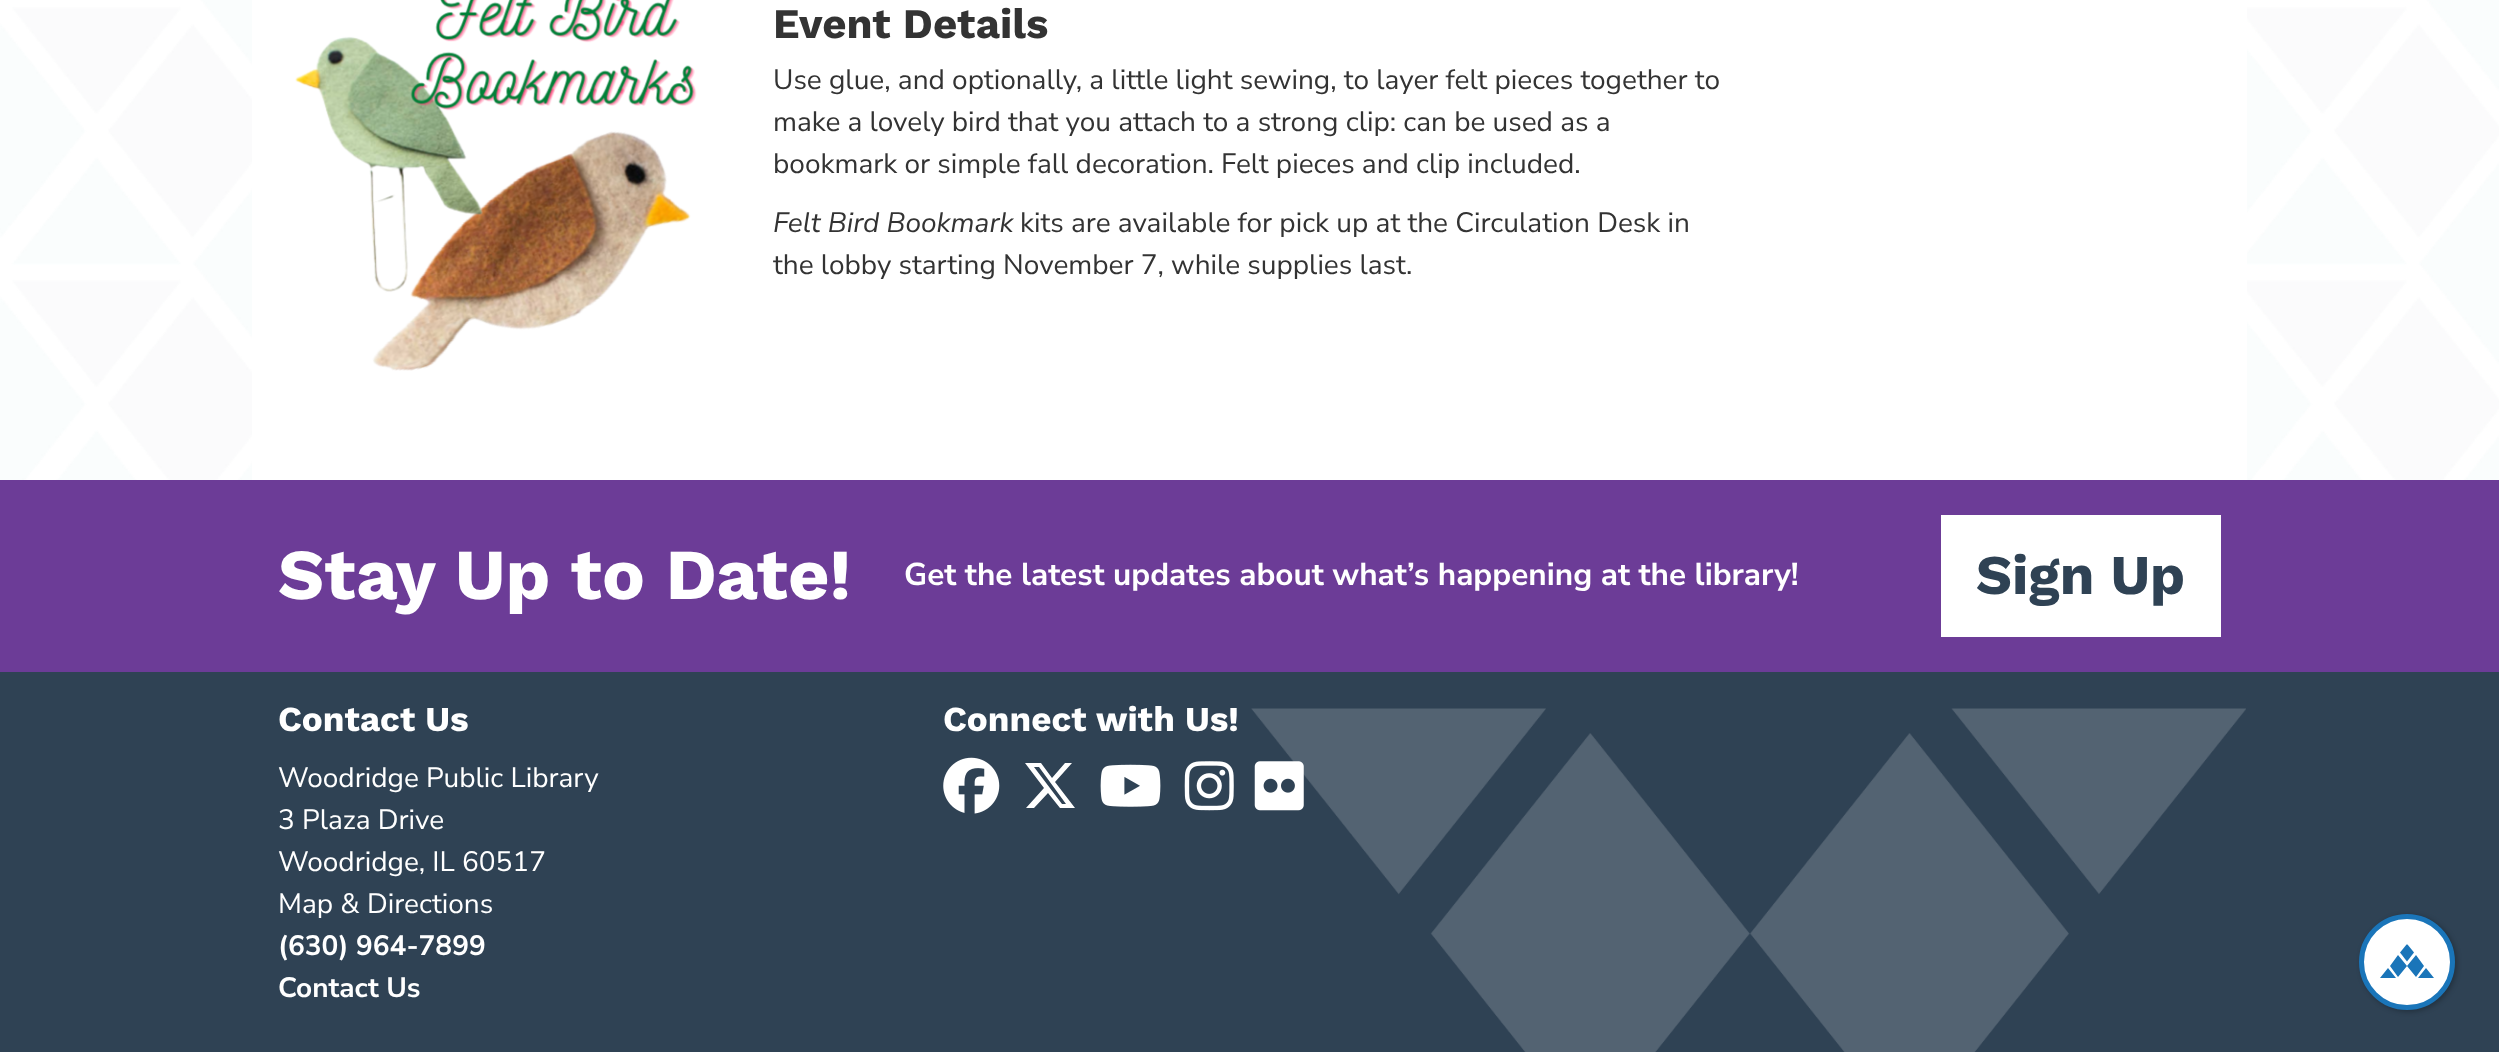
(async () => {
const canvas = document.querySelector("canvas")
canvas.width = 2499
canvas.height = 1052
const c = canvas.getContext("2d")
c.miterLimit = 4
c.fontKerning = "normal"
function T(s,x,y){c.fillText(s,x,y)}
function R(x,y,w,h){c.fillRect(x,y,w,h)}
async function I(src,x,y,w,h){const img=new Image();img.src=src;await img.decode();c.drawImage(img,x,y,w,h)}
let path
c.fillStyle="#fff"
R(0,0,2499,1052)
await I("1.png",0,0,2499,480)
R(252,0,1995,480)
await I("2.png",295,0,402,371)
c.font="bold 42px Work Sans"
c.fillStyle="#333"
T("Event Details",773,38)
c.font="28px Nunito Sans"
T("Use glue, and optionally, a little light sewing, to layer felt pieces together to",773,89)
T("make a lovely bird that you attach to a strong clip: can be used as a",773,131)
T("bookmark or simple fall decoration. Felt pieces and clip included.",773,173)
c.font="italic 28px Nunito Sans"
T("Felt Bird Bookmark",773,232)
c.font="28px Nunito Sans"
T("kits are available for pick up at the Circulation Desk in",1020,232)
T("the lobby starting November 7, while supplies last.",773,274)
c.fillStyle="#6c3c97"
R(0,480,2499,192)
c.font="bold 71.75px Work Sans"
c.fillStyle="#fff"
T("Stay Up to Date!",278,599)
c.font="bold 31.5px Nunito Sans"
T("Get the latest updates about what’s happening at the library!",904,585)
R(1941,515,280,122)
c.font="bold 56px Work Sans"
c.fillStyle="#2f4254"
T("Sign Up",1976,594)
R(0,672,2499,380)
await I("3.png",1251,708,995,344)
c.font="bold 35px Work Sans"
c.fillStyle="#fff"
T("Contact Us",278,731)
c.font="28px Nunito Sans"
T("Woodridge Public Library",278,787)
T("3 Plaza Drive",278,829)
T("Woodridge, IL 60517",278,871)
T("Map & Directions",278,913)
c.font="bold 28px Nunito Sans"
T("(630) 964-7899",278,955)
T("Contact Us",278,997)
c.font="bold 35px Work Sans"
T("Connect with Us!",943,731)
await I("4.png",943,757,57,57)
path = new Path2D("M1065 763h7l-17 19l20 26h-15l-12-15l-14 15h-8l18-20l-19-25h16l11 15zm-3 41h4l-27-37h-5z")
c.fill(path)
await I("5.png",1100,764,61,43)
await I("6.png",1184,761,50,50)
await I("7.png",1254,761,50,50)
c.fillStyle="#00000040"
c.filter="blur(2.5px)"
c.beginPath()
c.roundRect(2361,915,96,97,48)
c.fill()
c.filter="none"
c.fillStyle="#fff"
c.beginPath()
c.arc(2407,962,45.5,0,7)
c.fill()
c.strokeStyle="#1a75b9"
c.lineWidth=5
c.stroke()
c.fillStyle="#1a75b9"
path = new Path2D("M2396 978l-8-10l-8 10zm2-23l-8 11l8 11l9-11zm9 11l9-11l8 11l-8 11zm27 12h-16l8-10z")
c.fill(path,"evenodd")
path = new Path2D("M2407.5 944.5l6.5 8l-7 9l-7-9l6.5-8z")
c.fill(path)
})()
